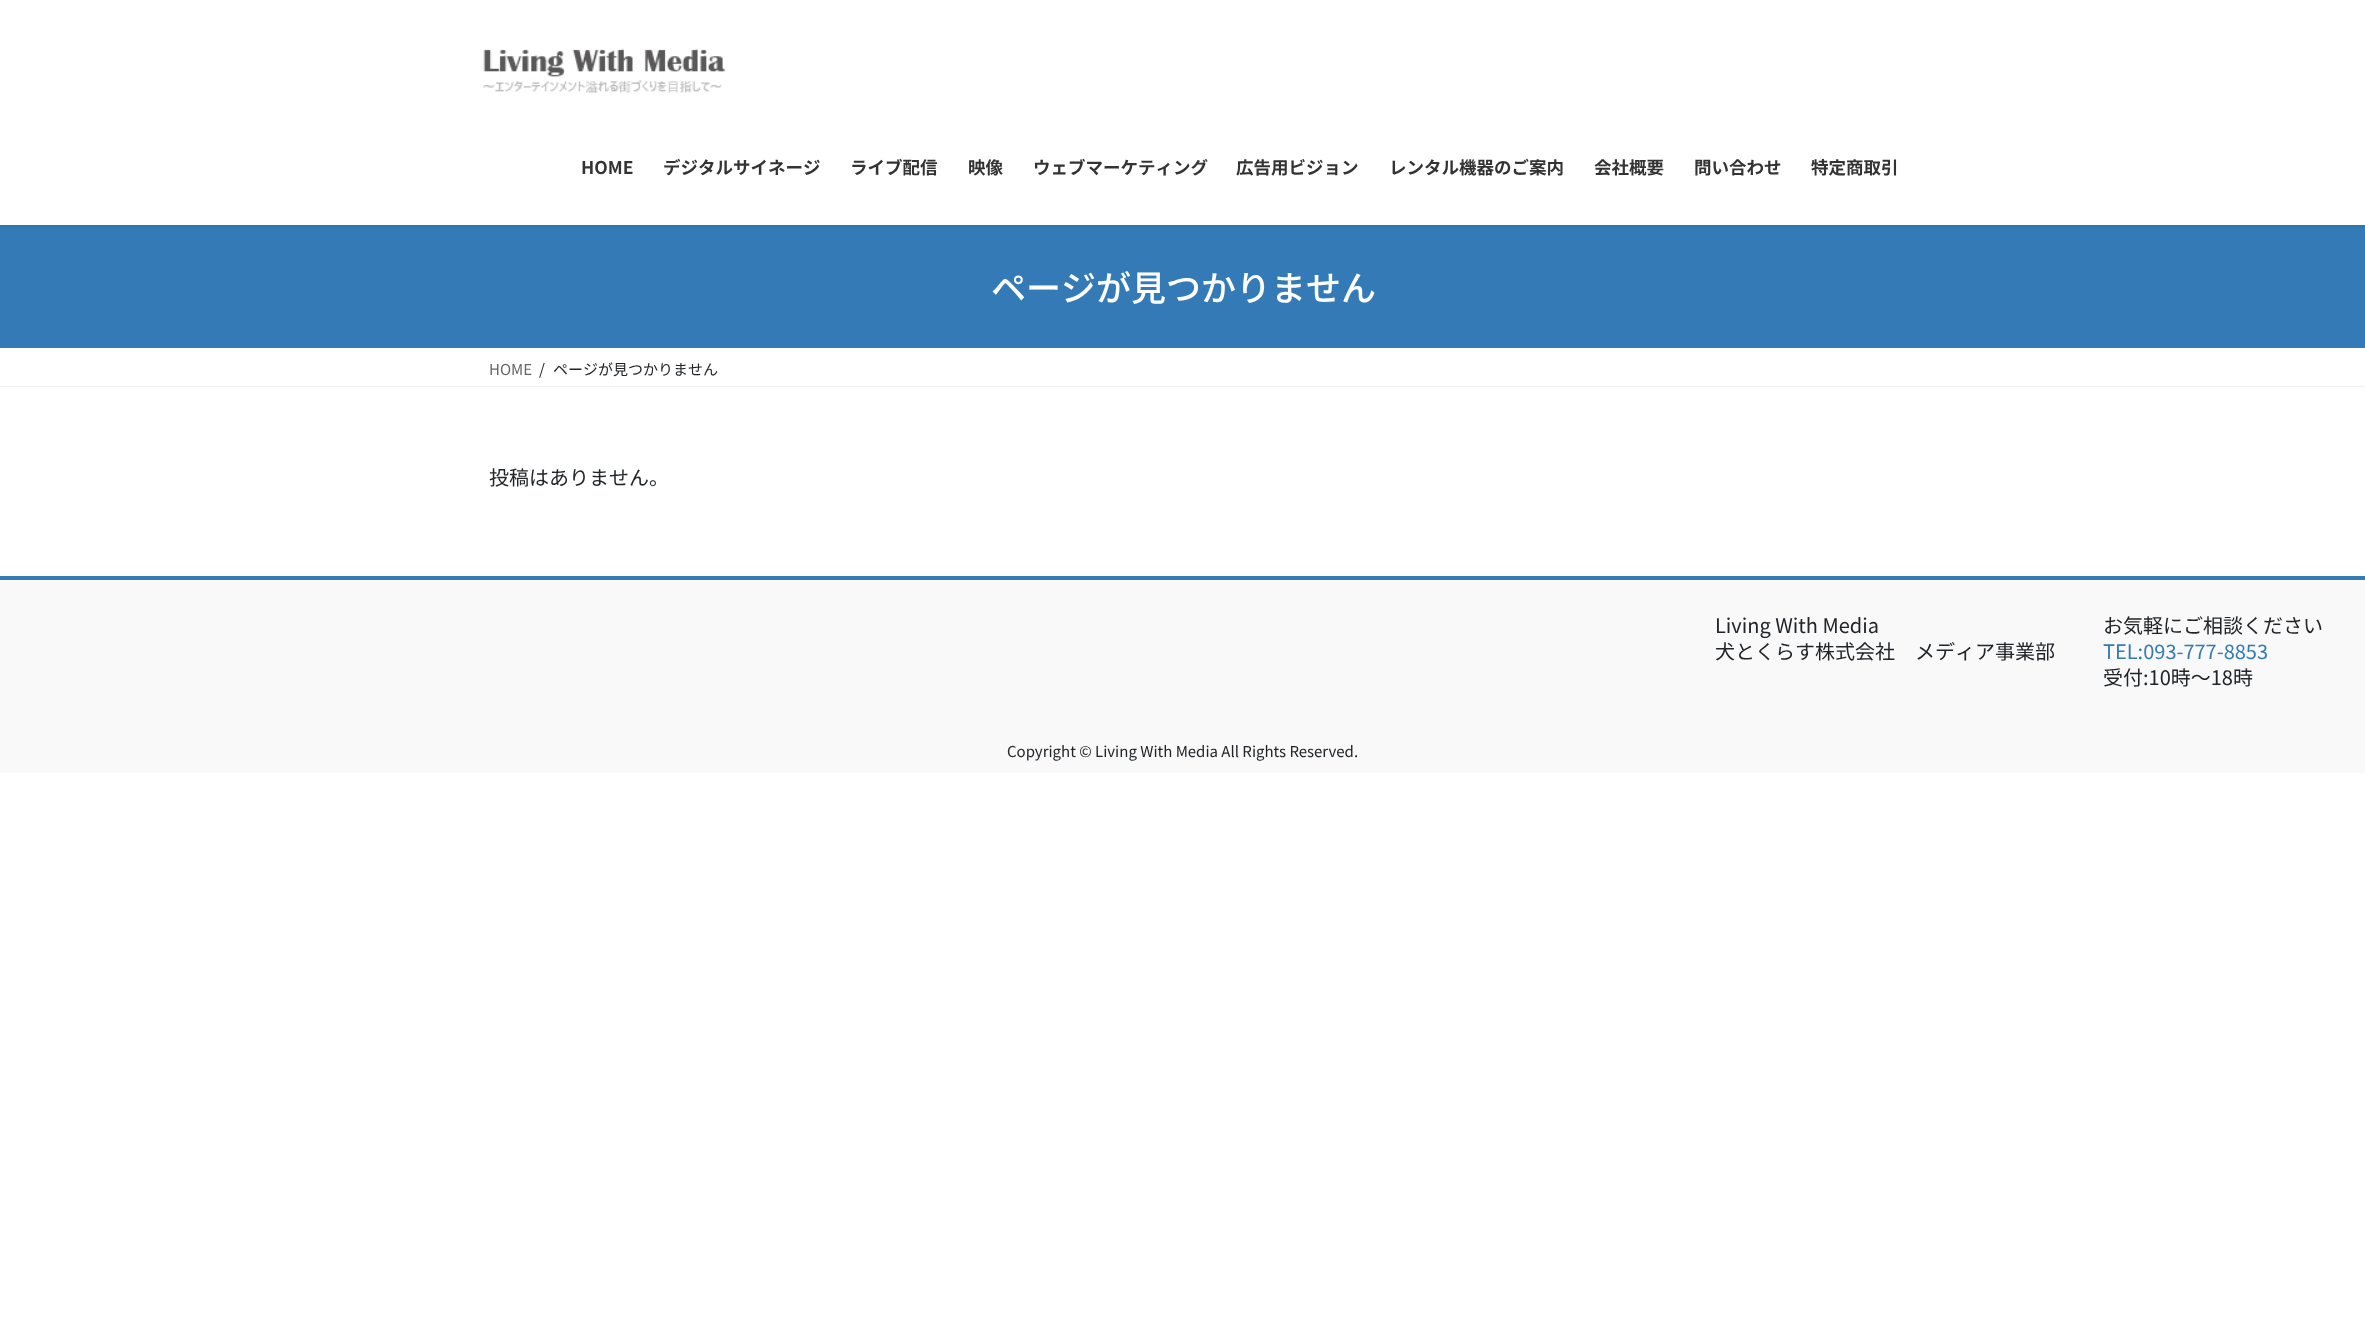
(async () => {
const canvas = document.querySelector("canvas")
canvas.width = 2365
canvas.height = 1324
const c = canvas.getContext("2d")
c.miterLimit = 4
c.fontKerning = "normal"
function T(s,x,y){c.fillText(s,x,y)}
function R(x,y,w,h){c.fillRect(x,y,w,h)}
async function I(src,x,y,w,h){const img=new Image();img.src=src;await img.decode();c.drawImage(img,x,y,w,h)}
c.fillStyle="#fff"
R(0,0,2365,1324)
c.fillStyle="#337ab7"
R(0,225,2365,123)
c.save()
c.beginPath()
c.rect(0,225,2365,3)
c.clip()
c.fillStyle="#0000001a"
c.filter="blur(2px)"
c.beginPath()
c.rect(0,1,2365,225)
c.fill()
c.filter="none"
c.restore()
await I("1.png",482,48,244,45)
c.font="bold 17.5px Noto Sans JP"
c.fillStyle="#333"
T("HOME",581,174)
T("デジタルサイネージ",663,174)
T("ライブ配信",850,174)
T("映像",968,174)
T("ウェブマーケティング",1033,174)
T("広告用ビジョン",1236,174)
T("レンタル機器のご案内",1389,174)
T("会社概要",1594,174)
T("問い合わせ",1694,174)
T("特定商取引",1811,174)
c.font="500 35px Noto Sans JP"
c.fillStyle="#fff"
T("ページが見つかりません",991,301)
c.fillStyle="#f2f2f2"
R(0,386,2365,1)
c.font="15px Noto Sans JP"
c.fillStyle="#666"
T("HOME",489,375)
c.fillStyle="#212529"
T("/",539,375)
T("ページが見つかりません",553,375)
c.font="20px Noto Sans JP"
T("投稿はありません。",489,485)
c.fillStyle="#f9f9f9"
R(0,580,2365,193)
c.fillStyle="#337ab7"
R(0,576,2365,4)
c.fillStyle="#212529"
T("Living With Media",1715,633)
T("犬とくらす株式会社　メディア事業部",1715,659)
T("お気軽にご相談ください",2103,633)
c.fillStyle="#337ab7"
T("TEL:093-777-8853",2103,659)
c.fillStyle="#212529"
T("受付:10時～18時",2103,685)
c.font="15px Noto Sans JP"
T("Copyright © Living With Media All Rights Reserved.",1007,757)
})()
